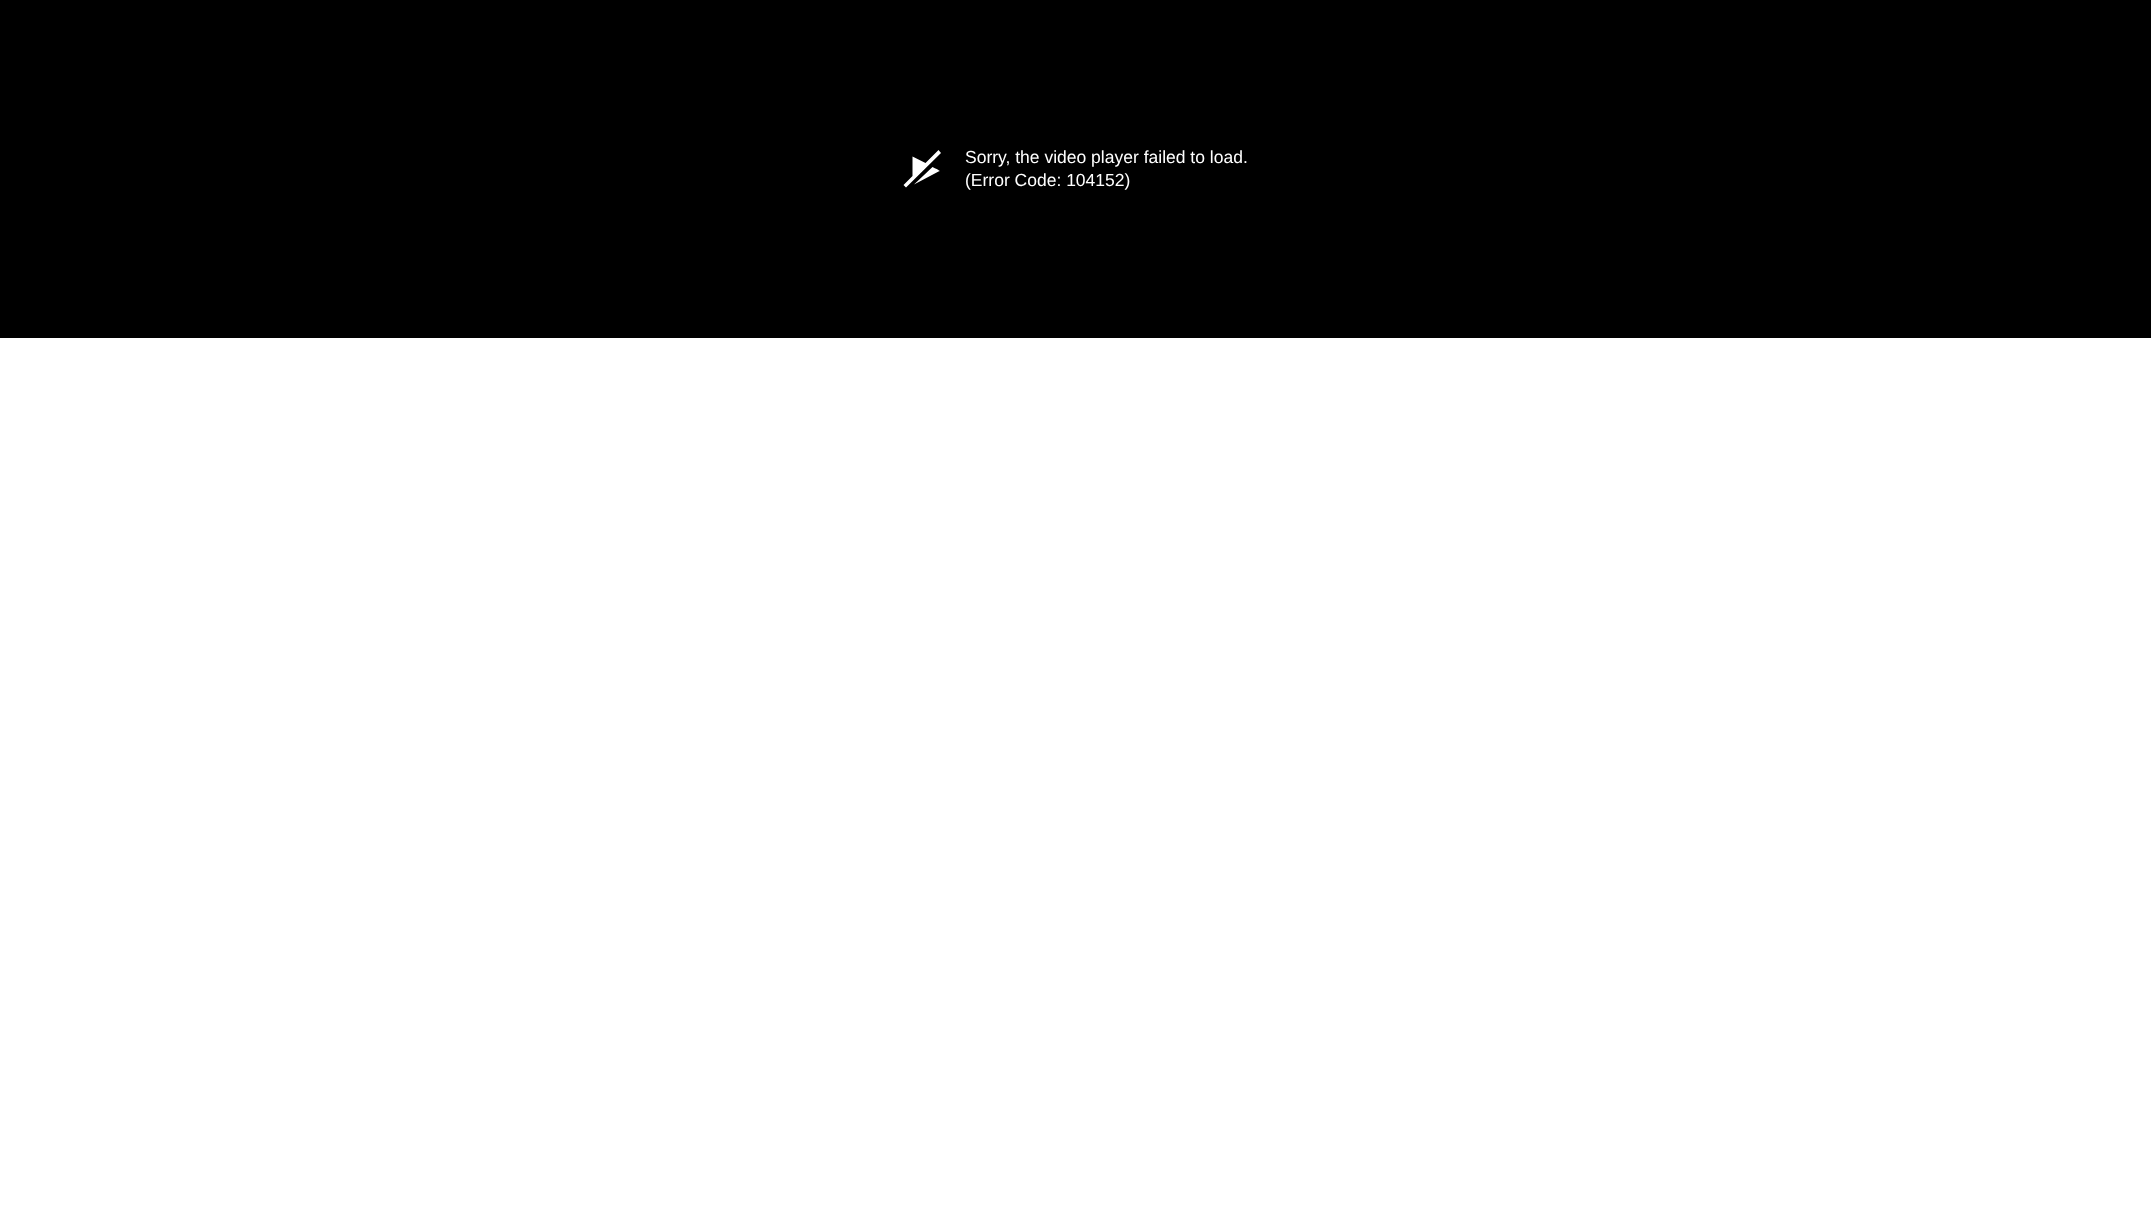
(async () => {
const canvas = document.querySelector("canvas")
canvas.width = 2151
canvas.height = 1215
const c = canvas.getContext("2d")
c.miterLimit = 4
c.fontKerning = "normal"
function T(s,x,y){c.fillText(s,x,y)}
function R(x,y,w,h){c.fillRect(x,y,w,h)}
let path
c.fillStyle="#fff"
R(0,0,2151,1215)
c.fillStyle="#000"
R(0,0,2151,338)
c.fillStyle="#fff"
path = new Path2D("M939.5 171l-25.5 13.5l18.5-17.5c7 3.5 8 4 7 4.5zm-1-21l-13 13l-13-6.5v19.5l-9 9l2.5 2.5l35-34.5z")
c.fill(path)
c.font="17.5px Liberation Sans"
T("Sorry, the video player failed to load.",965,163)
T("(Error Code: 104152)",965,186)
})()
